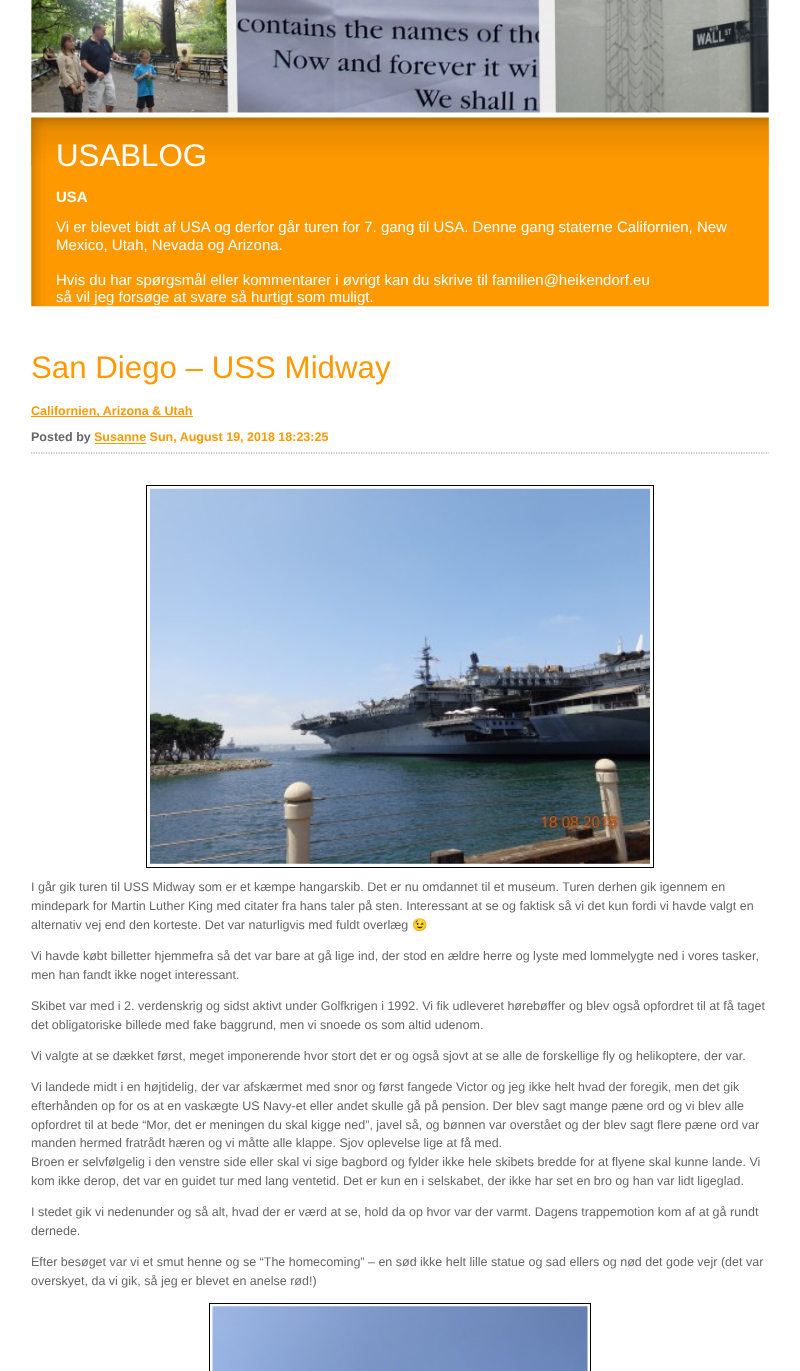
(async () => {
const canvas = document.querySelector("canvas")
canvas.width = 800
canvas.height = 1371
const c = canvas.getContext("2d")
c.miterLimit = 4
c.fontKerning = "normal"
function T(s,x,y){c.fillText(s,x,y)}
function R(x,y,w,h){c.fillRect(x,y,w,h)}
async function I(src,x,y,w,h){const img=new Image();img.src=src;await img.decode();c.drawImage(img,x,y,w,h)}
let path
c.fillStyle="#fff"
R(0,0,800,1371)
await I("1.png",31,0,738,113)
await I("2.png",31,117,738,190)
await I("3.png",31,117,738,50)
c.font="31.25px Liberation Sans"
T("USABLOG",56,166)
c.font="bold 15px Liberation Sans"
T("USA",56,202)
c.font="15px Liberation Sans"
T("Vi er blevet bidt af USA og derfor går turen for 7. gang til USA. Denne gang staterne Californien, New",56,232)
T("Mexico, Utah, Nevada og Arizona.",56,250)
T("Hvis du har spørgsmål eller kommentarer i øvrigt kan du skrive til familien@heikendorf.eu",56,285)
T("så vil jeg forsøge at svare så hurtigt som muligt.",56,302)
c.font="31.25px Liberation Sans"
c.fillStyle="#f90"
T("San Diego – USS Midway",31,378)
R(31,416,162,1)
c.font="bold 12.5px Liberation Sans"
T("Californien, Arizona & Utah",31,415)
path = new Path2D("M31 453h738")
c.strokeStyle="#999"
c.lineWidth=1.2
c.setLineDash([1.25,1.25])
c.stroke(path)
c.fillStyle="#666"
T("Posted by",31,441)
c.fillStyle="#f90"
R(95,443,51,1)
T("Susanne Sun, August 19, 2018 18:23:25",94,441)
c.strokeStyle="#000"
c.lineWidth=1
c.setLineDash([])
c.strokeRect(146.5,485.5,507,382)
await I("4.png",150,488,500,376)
c.font="12.5px Liberation Sans"
c.fillStyle="#666"
T("I går gik turen til USS Midway som er et kæmpe hangarskib. Det er nu omdannet til et museum. Turen derhen gik igennem en",31,891)
T("mindepark for Martin Luther King med citater fra hans taler på sten. Interessant at se og faktisk så vi det kun fordi vi havde valgt en",31,910)
T("alternativ vej end den korteste. Det var naturligvis med fuldt overlæg",31,929)
c.font="12.5px Noto Color Emoji"
T("😉",412,929)
c.font="12.5px Liberation Sans"
T("Vi havde købt billetter hjemmefra så det var bare at gå lige ind, der stod en ældre herre og lyste med lommelygte ned i vores tasker,",31,960)
T("men han fandt ikke noget interessant.",31,979)
T("Skibet var med i 2. verdenskrig og sidst aktivt under Golfkrigen i 1992. Vi fik udleveret hørebøffer og blev også opfordret til at få taget",31,1010)
T("det obligatoriske billede med fake baggrund, men vi snoede os som altid udenom.",31,1029)
T("Vi valgte at se dækket først, meget imponerende hvor stort det er og også sjovt at se alle de forskellige fly og helikoptere, der var.",31,1060)
T("Vi landede midt i en højtidelig, der var afskærmet med snor og først fangede Victor og jeg ikke helt hvad der foregik, men det gik",31,1091)
T("efterhånden op for os at en vaskægte US Navy-et eller andet skulle gå på pension. Der blev sagt mange pæne ord og vi blev alle",31,1110)
T("opfordret til at bede “Mor, det er meningen du skal kigge ned”, javel så, og bønnen var overstået og der blev sagt flere pæne ord var",31,1129)
T("manden hermed fratrådt hæren og vi måtte alle klappe. Sjov oplevelse lige at få med.",31,1147)
T("Broen er selvfølgelig i den venstre side eller skal vi sige bagbord og fylder ikke hele skibets bredde for at flyene skal kunne lande. Vi",31,1166)
T("kom ikke derop, det var en guidet tur med lang ventetid. Det er kun en i selskabet, der ikke har set en bro og han var lidt ligeglad.",31,1185)
T("I stedet gik vi nedenunder og så alt, hvad der er værd at se, hold da op hvor var der varmt. Dagens trappemotion kom af at gå rundt",31,1216)
T("dernede.",31,1235)
T("Efter besøget var vi et smut henne og se “The homecoming” – en sød ikke helt lille statue og sad ellers og nød det gode vejr (det var",31,1266)
T("overskyet, da vi gik, så jeg er blevet en anelse rød!)",31,1285)
c.strokeRect(209.5,1303.5,381,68)
await I("5.png",212,1306,376,65)
})()
